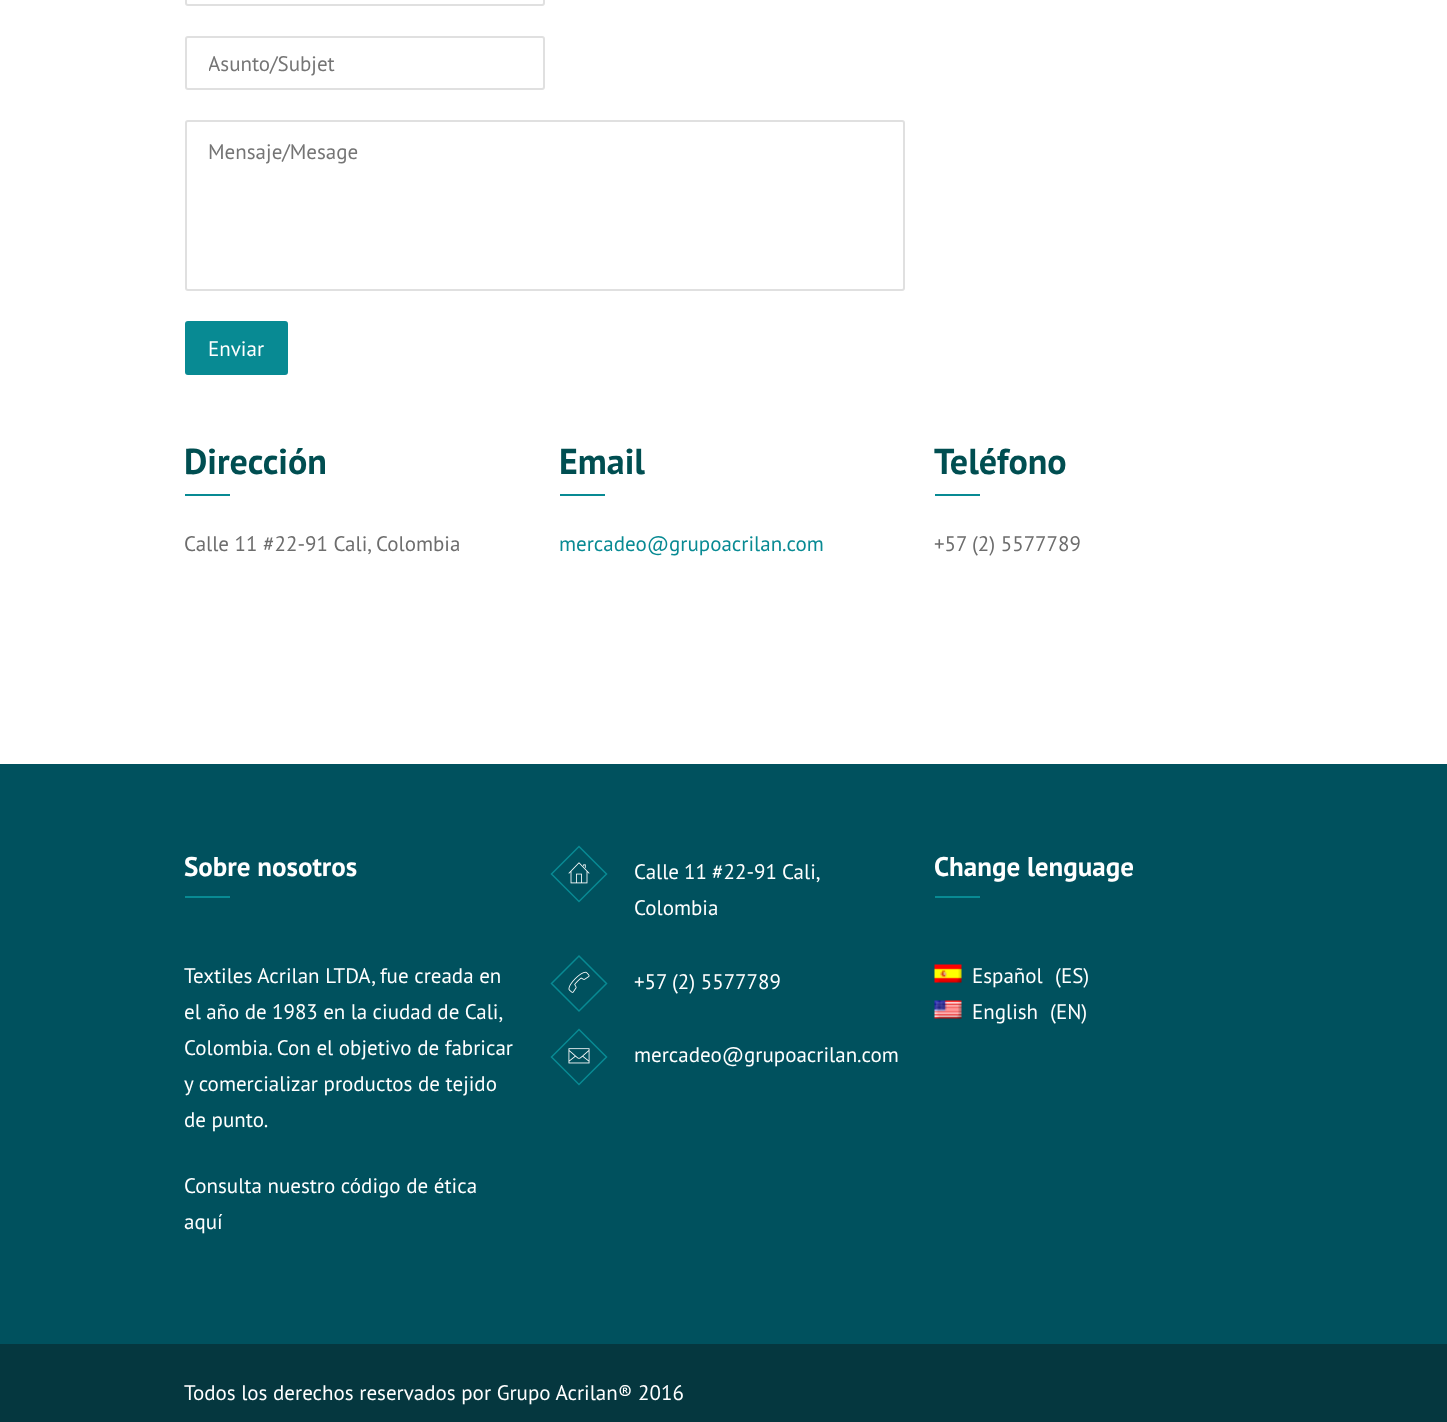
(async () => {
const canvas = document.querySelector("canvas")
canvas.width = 1447
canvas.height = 1422
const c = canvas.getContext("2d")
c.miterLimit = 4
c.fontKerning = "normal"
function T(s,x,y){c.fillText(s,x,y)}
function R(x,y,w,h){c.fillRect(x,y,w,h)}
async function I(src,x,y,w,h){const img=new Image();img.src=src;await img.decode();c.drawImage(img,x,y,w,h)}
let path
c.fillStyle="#fff"
R(0,0,1447,1422)
c.beginPath()
c.roundRect(186,-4,358,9,2)
c.strokeStyle="#e0e0e0"
c.lineWidth=2
c.stroke()
c.beginPath()
c.roundRect(186,37,358,52,2)
c.stroke()
c.save()
c.beginPath()
c.rect(209,50,312,27)
c.clip()
c.font="21px PT Sans"
c.fillStyle="#757575"
T("Asunto/Subjet",208,71)
c.restore()
c.beginPath()
c.roundRect(186,121,718,169,2)
c.stroke()
c.font="21px PT Sans"
c.fillStyle="#757575"
T("Mensaje/Mesage",208,159)
c.fillStyle="#088a93"
R(187,323,99,50)
c.beginPath()
c.roundRect(186,322,101,52,2)
c.strokeStyle="#088a93"
c.stroke()
c.fillStyle="#fff"
T("Enviar",208,356)
c.font="bold 36px PT Sans"
c.fillStyle="#004e51"
T("Dirección",184,474)
c.fillStyle="#088a93"
R(185,494,45,2)
c.font="21px PT Sans"
c.fillStyle="#6d6d6d"
T("Calle 11 #22-91 Cali, Colombia",184,551)
c.font="bold 36px PT Sans"
c.fillStyle="#004e51"
T("Email",559,474)
c.fillStyle="#088a93"
R(560,494,45,2)
c.font="21px PT Sans"
T("mercadeo@grupoacrilan.com",559,551)
c.font="bold 36px PT Sans"
c.fillStyle="#004e51"
T("Teléfono",934,474)
c.fillStyle="#088a93"
R(935,494,45,2)
c.font="21px PT Sans"
c.fillStyle="#6d6d6d"
T("+57 (2) 5577789",934,551)
c.fillStyle="#00515e"
R(0,764,1447,580)
c.font="bold 27px PT Sans"
c.fillStyle="#fff"
T("Sobre nosotros",184,876)
c.fillStyle="#088a93"
R(185,896,45,2)
c.font="21px PT Sans"
c.fillStyle="#fff"
T("Textiles Acrilan LTDA, fue creada en",184,983)
c.wordSpacing="-0.25px"
T("el año de 1983 en la ciudad de Cali,",184,1019)
c.wordSpacing="0px"
T("Colombia. Con el objetivo de fabricar",184,1055)
T("y comercializar productos de tejido",184,1091)
T("de punto.",184,1127)
T("Consulta nuestro código de ética",184,1193)
T("aquí",184,1229)
path = new Path2D("M579 846.5l27.5 27.5l-27.5 27.5l-27.5-27.5z")
c.lineWidth=1.5
c.stroke(path)
await I("1.png",568,862,22,22)
c.wordSpacing="-0.5px"
T("Calle 11 #22-91 Cali,",634,879)
c.wordSpacing="0px"
T("Colombia",634,915)
path = new Path2D("M579 956l27.5 27.5l-27.5 27.5l-27.5-27.5z")
c.stroke(path)
await I("2.png",568,971,22,22)
T("+57 (2) 5577789",634,989)
path = new Path2D("M579 1029.5l27.5 27.5l-27.5 27.5l-27.5-27.5z")
c.stroke(path)
await I("3.png",568,1048,22,16)
T("mercadeo@grupoacrilan.com",634,1062)
c.font="bold 27px PT Sans"
T("Change lenguage",934,876)
c.fillStyle="#088a93"
R(935,896,45,2)
await I("4.png",934,964,28,19)
c.font="21px PT Sans"
c.fillStyle="#fff"
T("Español",972,983)
T("(ES)",1055,983)
await I("5.png",934,1000,28,19)
T("English",972,1019)
T("(EN)",1050,1019)
c.fillStyle="#05373f"
R(0,1344,1447,78)
c.fillStyle="#fff"
T("Todos los derechos reservados por Grupo Acrilan® 2016",184,1400)
})()
